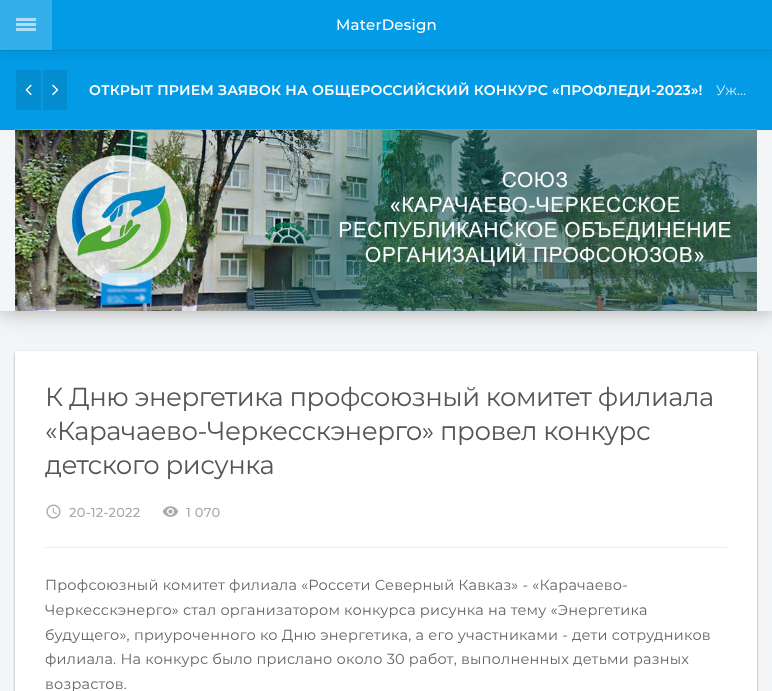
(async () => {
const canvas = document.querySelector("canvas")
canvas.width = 772
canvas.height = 691
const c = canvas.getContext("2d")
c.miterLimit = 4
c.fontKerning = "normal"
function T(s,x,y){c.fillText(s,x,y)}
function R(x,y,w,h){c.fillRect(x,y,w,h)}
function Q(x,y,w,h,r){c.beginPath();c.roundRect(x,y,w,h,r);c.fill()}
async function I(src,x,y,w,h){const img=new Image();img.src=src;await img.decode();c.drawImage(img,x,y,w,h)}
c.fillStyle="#f4f5f6"
R(0,0,772,691)
c.fillStyle="#0000003d"
c.filter="blur(1px)"
c.beginPath()
c.roundRect(15,352,742,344,2)
c.fill()
c.filter="none"
c.fillStyle="#0000001f"
c.filter="blur(1.5px)"
c.beginPath()
c.roundRect(15,352,742,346,2)
c.fill()
c.filter="none"
c.fillStyle="#fff"
Q(15,351,742,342,2)
c.fillStyle="#0000001f"
c.filter="blur(15px)"
c.beginPath()
c.rect(0,52,772,261)
c.fill()
c.filter="none"
c.fillStyle="#00000029"
c.filter="blur(7.5px)"
c.beginPath()
c.rect(0,52,772,261)
c.fill()
c.filter="none"
c.fillStyle="#039be5"
R(0,50,772,80)
c.fillStyle="#038cce"
R(16,70,25,40)
R(43,70,24,40)
c.fillStyle="#0000000d"
c.filter="blur(5px)"
c.beginPath()
c.rect(0,5,772,50)
c.fill()
c.filter="none"
c.fillStyle="#0000000f"
R(0,50,772,1)
c.fillStyle="#039be5"
R(52,0,720,50)
c.fillStyle="#35afea"
R(0,0,52,50)
c.fillStyle="#aedff7"
R(16,28,20,3)
R(16,23,20,3)
R(16,18,20,3)
c.letterSpacing="0.25px"
c.font="500 15px Montserrat"
c.fillStyle="#fff"
T("MaterDesign",336,30)
c.fillStyle="#f4f5f6"
R(0,130,772,181)
c.fillStyle="#35afea"
R(15,129,742,1)
await I("1.png",25,84,7,12)
await I("2.png",52,84,7,12)
c.letterSpacing="0.2px"
c.font="600 14px Montserrat"
c.fillStyle="#fff"
T("ОТКРЫТ ПРИЕМ ЗАЯВОК НА ОБЩЕРОССИЙСКИЙ КОНКУРС «ПРОФЛЕДИ-2023»!",89,95)
c.font="14px Montserrat"
c.fillStyle="#cdebfa"
T("Уж…",716,95)
await I("3.png",15,130,742,181)
c.fillStyle="#e9eaea"
R(45,547,682,1)
c.letterSpacing="-0.5px"
c.font="26px Montserrat"
c.fillStyle="#565656"
T("К Дню энергетика профсоюзный комитет филиала",45,406)
T("«Карачаево-Черкесскэнерго» провел конкурс",45,440)
T("детского рисунка",45,474)
await I("4.png",46,504,15,15)
c.letterSpacing="0.25px"
c.font="500 13px Montserrat"
c.fillStyle="#aaa"
T("20-12-2022",69,517)
await I("5.png",162,506,17,11)
T("1 070",186,517)
c.letterSpacing="0.22px"
c.font="14.5px Montserrat"
c.fillStyle="#656565"
T("Профсоюзный комитет филиала «Россети Северный Кавказ» - «Карачаево-",45,590)
T("Черкесскэнерго» стал организатором конкурса рисунка на тему «Энергетика",45,615)
T("будущего», приуроченного ко Дню энергетика, а его участниками - дети сотрудников",45,640)
T("филиала. На конкурс было прислано около 30 работ, выполненных детьми разных",45,664)
T("возрастов.",45,689)
})()
